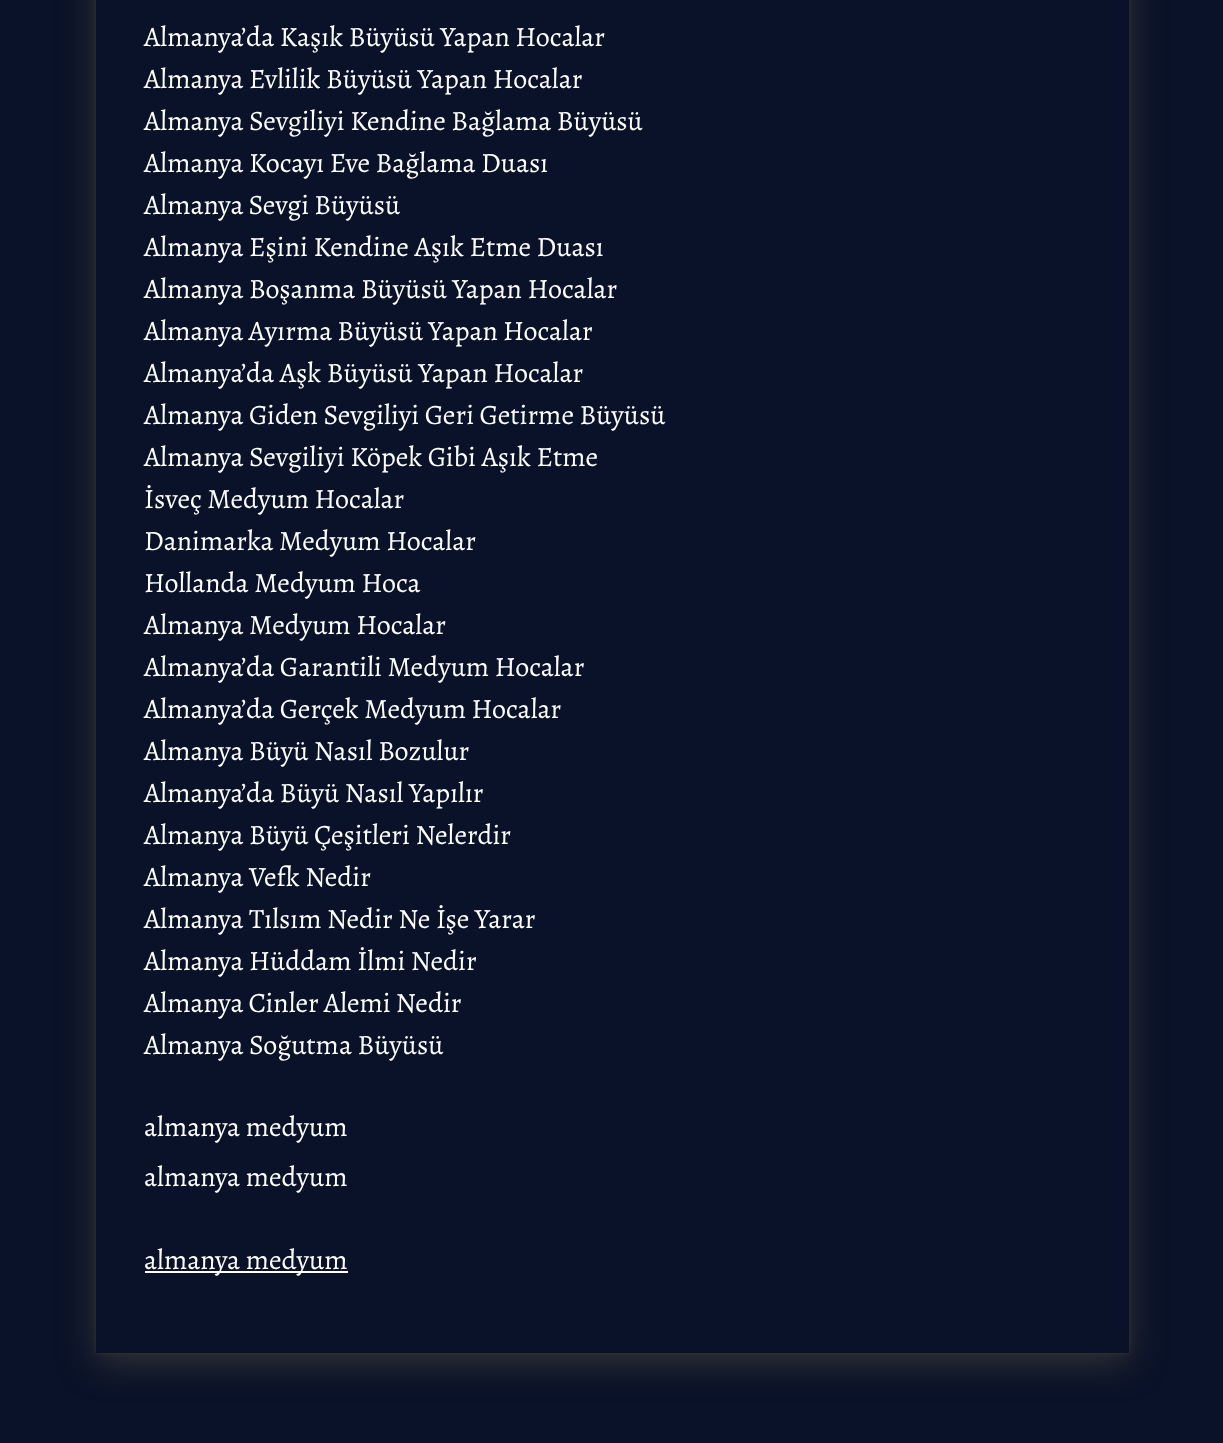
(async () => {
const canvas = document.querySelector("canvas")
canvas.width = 1223
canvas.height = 1443
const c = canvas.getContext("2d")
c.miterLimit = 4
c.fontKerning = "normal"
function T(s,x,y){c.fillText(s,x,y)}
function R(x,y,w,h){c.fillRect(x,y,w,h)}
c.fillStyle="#0a1229"
R(0,0,1223,1443)
c.fillStyle="#343434"
c.filter="blur(17.5px)"
c.beginPath()
c.rect(96,-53,1033,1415)
c.fill()
c.filter="none"
c.filter="blur(2px)"
c.beginPath()
c.rect(96,-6,1033,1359)
c.fill()
c.filter="none"
c.fillStyle="#0a1229"
R(96,0,1033,1353)
c.font="28px Alegreya"
c.fillStyle="#fff"
T("Almanya’da Kaşık Büyüsü Yapan Hocalar",144,46)
T("Almanya Evlilik Büyüsü Yapan Hocalar",144,88)
T("Almanya Sevgiliyi Kendine Bağlama Büyüsü",144,130)
T("Almanya Kocayı Eve Bağlama Duası",144,172)
c.wordSpacing="-0.5px"
T("Almanya Sevgi Büyüsü",144,214)
c.wordSpacing="0px"
T("Almanya Eşini Kendine Aşık Etme Duası",144,256)
T("Almanya Boşanma Büyüsü Yapan Hocalar",144,298)
c.wordSpacing="-0.5px"
T("Almanya Ayırma Büyüsü Yapan Hocalar",144,340)
c.wordSpacing="0px"
T("Almanya’da Aşk Büyüsü Yapan Hocalar",144,382)
T("Almanya Giden Sevgiliyi Geri Getirme Büyüsü",144,424)
T("Almanya Sevgiliyi Köpek Gibi Aşık Etme",144,466)
T("İsveç Medyum Hocalar",144,508)
T("Danimarka Medyum Hocalar",144,550)
T("Hollanda Medyum Hoca",144,592)
T("Almanya Medyum Hocalar",144,634)
T("Almanya’da Garantili Medyum Hocalar",144,676)
T("Almanya’da Gerçek Medyum Hocalar",144,718)
T("Almanya Büyü Nasıl Bozulur",144,760)
T("Almanya’da Büyü Nasıl Yapılır",144,802)
T("Almanya Büyü Çeşitleri Nelerdir",144,844)
T("Almanya Vefk Nedir",144,886)
T("Almanya Tılsım Nedir Ne İşe Yarar",144,928)
T("Almanya Hüddam İlmi Nedir",144,970)
c.wordSpacing="-0.5px"
T("Almanya Cinler Alemi Nedir",144,1012)
c.wordSpacing="0px"
T("Almanya Soğutma Büyüsü",144,1054)
T("almanya medyum",144,1136)
T("almanya medyum",144,1186)
R(145,1271,203,2)
T("almanya medyum",144,1269)
})()
